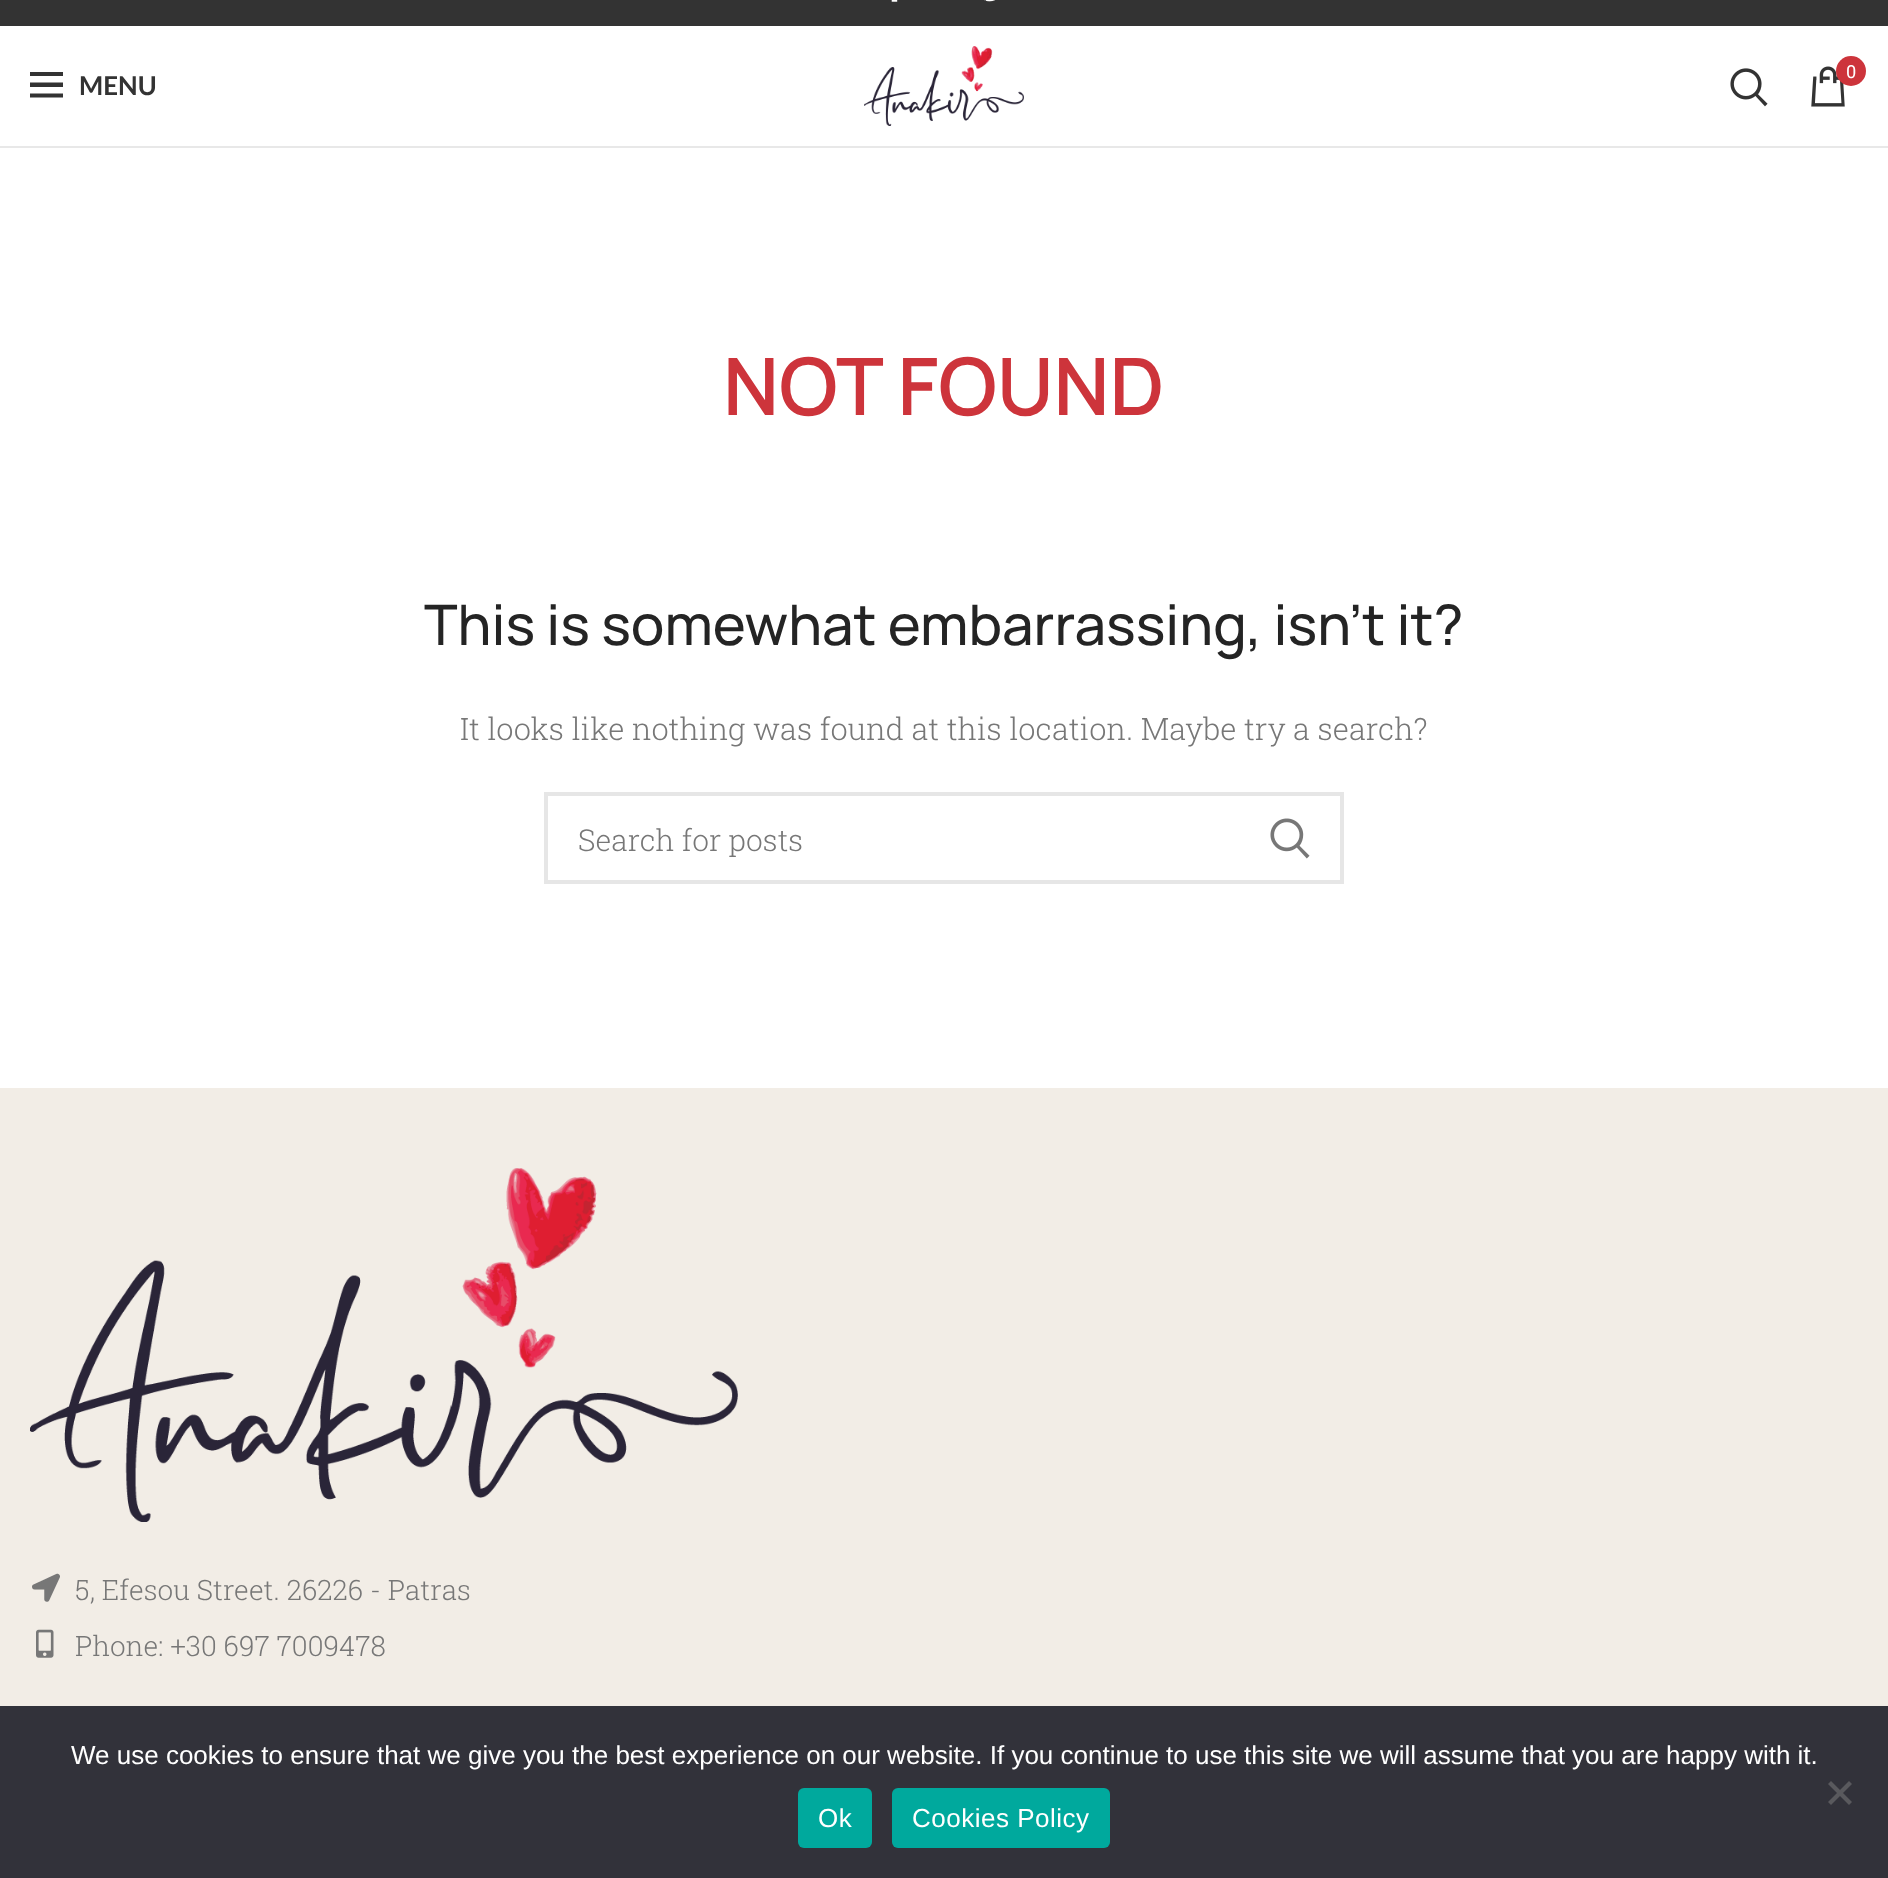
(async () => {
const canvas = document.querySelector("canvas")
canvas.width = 1888
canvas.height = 1878
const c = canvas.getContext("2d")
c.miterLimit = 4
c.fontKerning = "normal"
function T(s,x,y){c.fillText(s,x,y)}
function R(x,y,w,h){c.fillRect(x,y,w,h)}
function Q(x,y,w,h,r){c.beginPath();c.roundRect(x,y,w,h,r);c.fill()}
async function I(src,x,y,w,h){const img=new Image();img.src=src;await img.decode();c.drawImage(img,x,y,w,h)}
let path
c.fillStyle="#fff"
R(0,0,1888,1878)
c.fillStyle="#333"
R(0,0,1888,26)
await I("1.png",891,0,7,2)
await I("2.png",984,0,12,2)
c.fillStyle="#e8e8e8"
R(0,146,1888,2)
await I("3.png",864,46,160,80)
await I("4.png",1730,68,38,39)
await I("5.png",1811,66,34,41)
c.fillStyle="#cd343b"
c.beginPath()
c.arc(1851,71,15,0,7)
c.fill()
c.font="18px Roboto Slab"
c.fillStyle="#fff"
T("0",1846,78)
c.fillStyle="#333"
path = new Path2D("M30 72h33v4h-33zm0 10.5h33v4.5h-33zm0 11h33v4h-33z")
c.fill(path)
c.font="bold 26px Lato"
T("MENU",79,95)
c.font="600 79.25px Manrope"
c.fillStyle="#cd343b"
T("NOT FOUND",723,415)
c.font="500 56px Manrope"
c.fillStyle="#242424"
T("This is somewhat embarrassing, isn’t it?",424,645)
c.font="300 30.8px Roboto Slab"
c.fillStyle="#777"
T("It looks like nothing was found at this location. Maybe try a search?",460,740)
c.strokeStyle="#e6e6e6"
c.lineWidth=4
c.strokeRect(546,794,796,88)
c.font="300 30px Roboto Slab"
T("Search for posts",578,851)
await I("6.png",1270,818,40,41)
c.fillStyle="#f2ede6"
R(0,1088,1888,618)
await I("7.png",30,1168,708,354)
await I("8.png",32,1573,28,29)
c.font="300 28px Roboto Slab"
c.fillStyle="#777"
T("5, Efesou Street. 26226 - Patras",75,1600)
await I("9.png",36,1629,18,29)
T("Phone: +30 697 7009478",75,1656)
c.fillStyle="#32323a"
R(0,1706,1888,172)
c.font="26px Liberation Sans"
c.fillStyle="#fff"
T("We use cookies to ensure that we give you the best experience on our website. If you continue to use this site we will assume that you are happy with it.",71,1764)
c.fillStyle="#59595d"
path = new Path2D("M1849 1781l3 3l-21 21l-3-3z")
c.fill(path)
path = new Path2D("M1828 1784l3-3l21 21l-3 3z")
c.fill(path)
c.fillStyle="#00a99d"
Q(798,1788,74,60,6)
c.letterSpacing="0.5px"
c.fillStyle="#fff"
T("Ok",818,1827)
c.fillStyle="#00a99d"
Q(892,1788,218,60,6)
c.fillStyle="#fff"
T("Cookies Policy",912,1827)
})()
